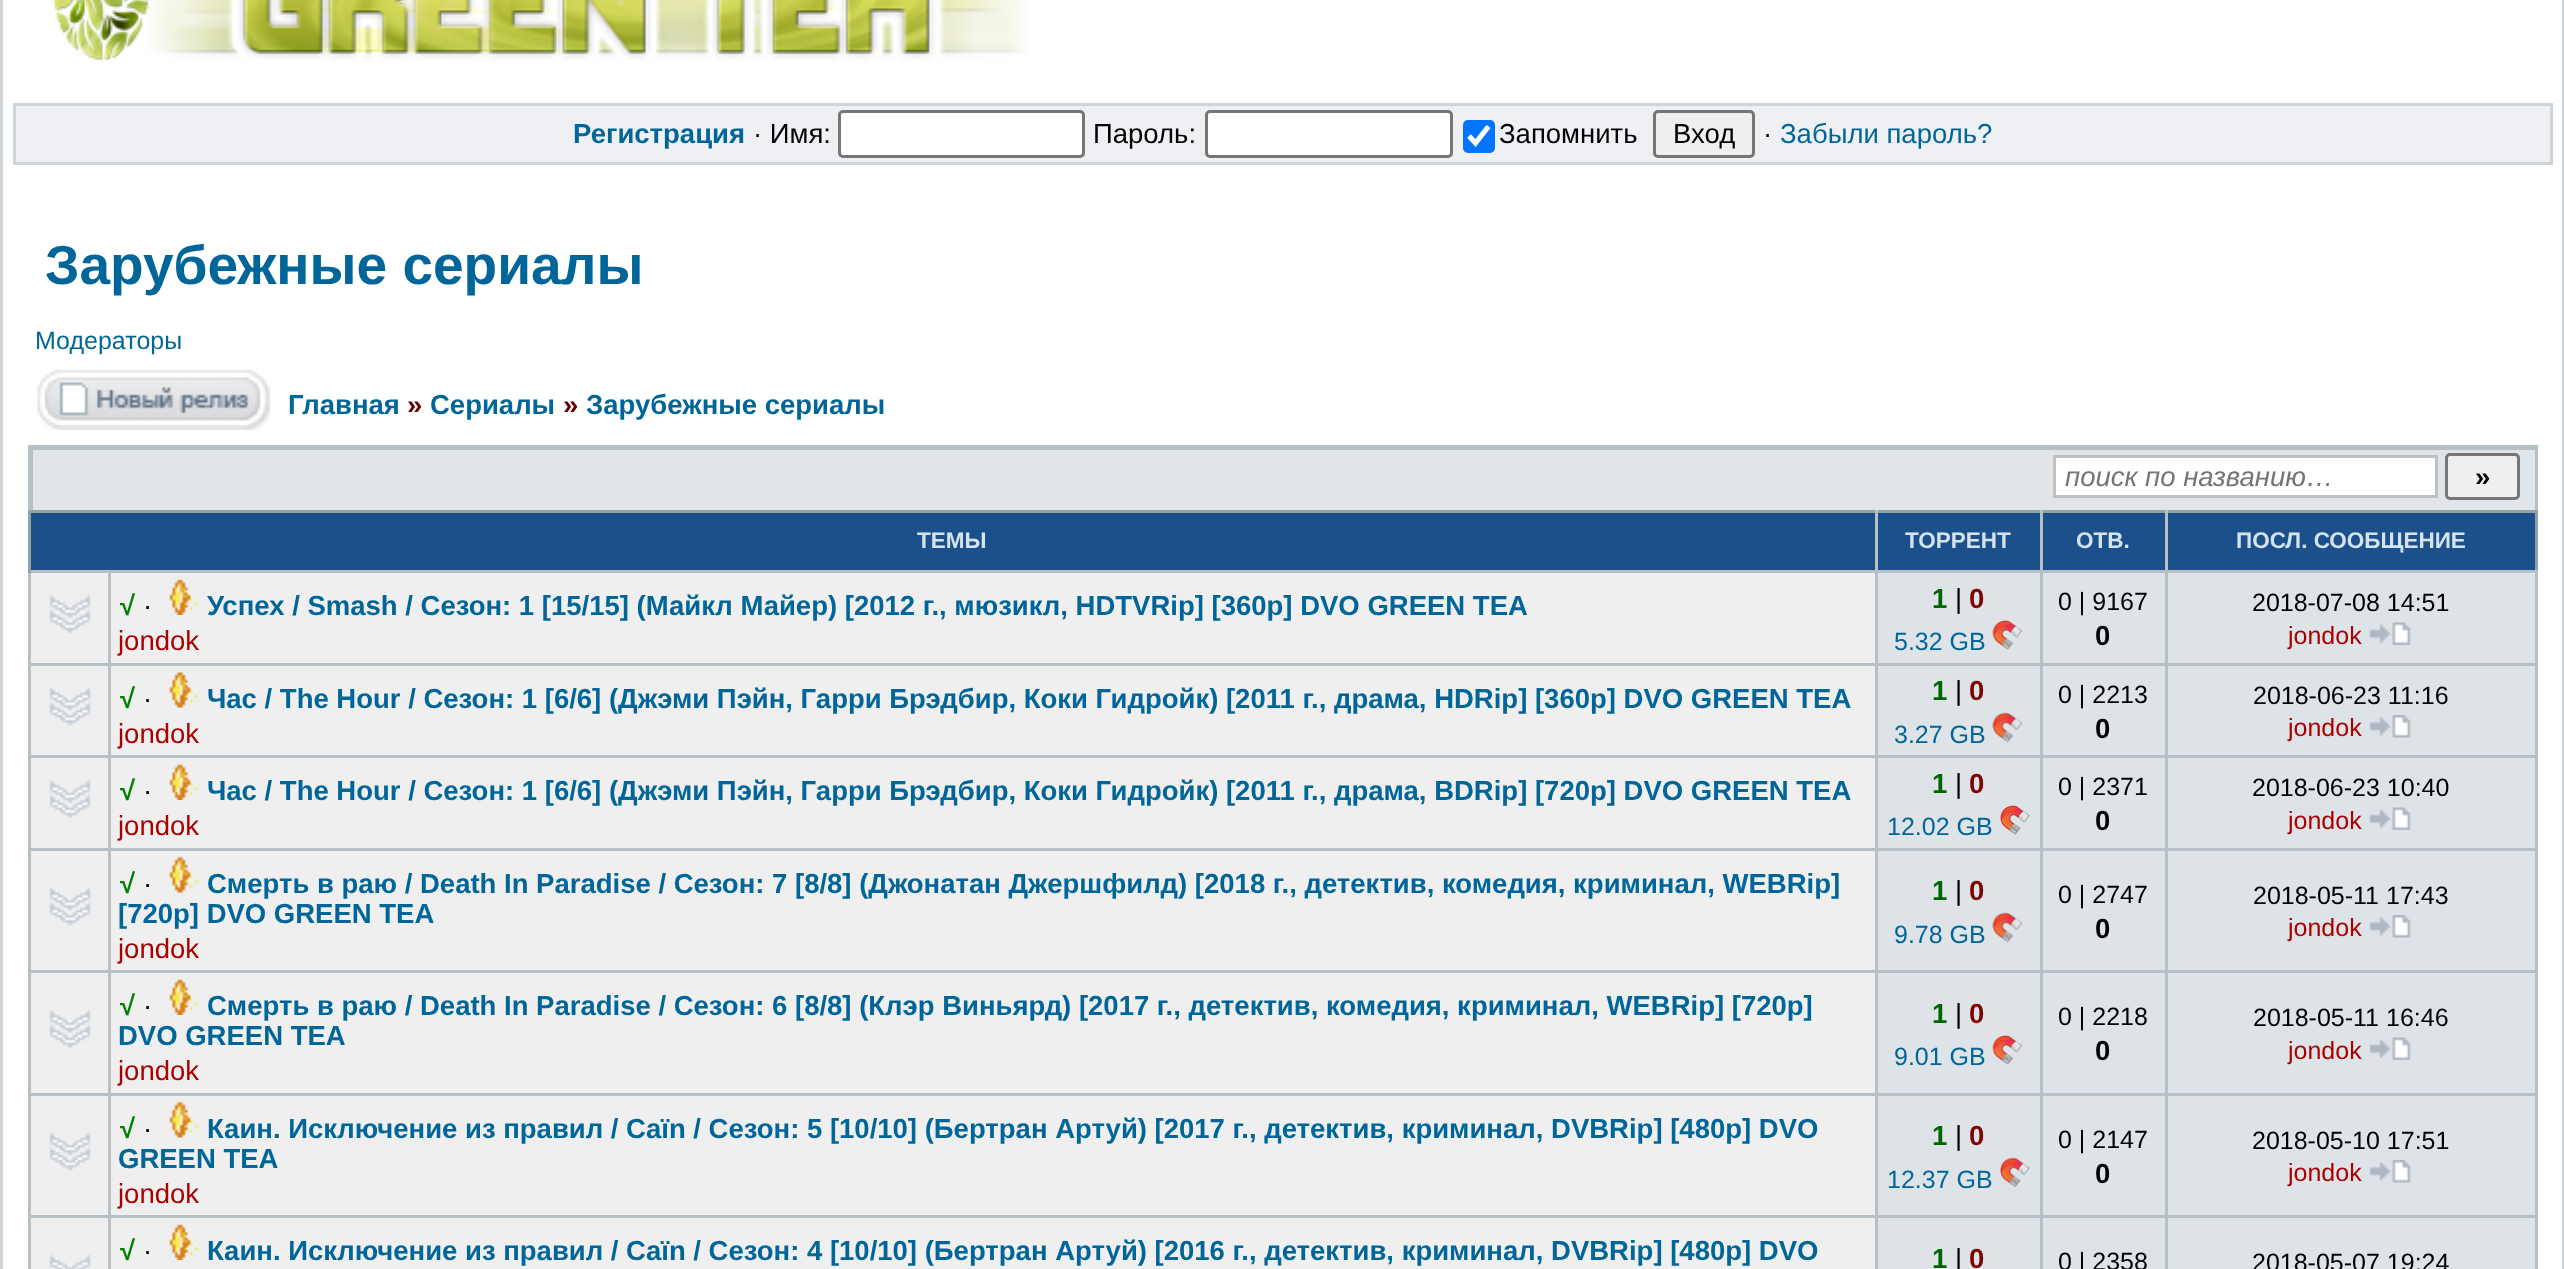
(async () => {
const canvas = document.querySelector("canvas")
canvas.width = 2564
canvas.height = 1269
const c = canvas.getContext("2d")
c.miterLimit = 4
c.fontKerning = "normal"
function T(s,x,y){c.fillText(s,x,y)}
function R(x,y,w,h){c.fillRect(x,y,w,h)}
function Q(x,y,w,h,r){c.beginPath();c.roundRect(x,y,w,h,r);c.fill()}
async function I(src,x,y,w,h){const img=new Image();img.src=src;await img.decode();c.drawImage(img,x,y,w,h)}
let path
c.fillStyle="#fff"
R(0,0,2564,1269)
c.strokeStyle="#cfd4d8"
c.lineWidth=3
c.strokeRect(1.5,-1.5,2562,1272)
await I("1.png",52,0,976,61)
c.fillStyle="#eff0f3"
c.beginPath()
c.rect(14.5,104.5,2537,59)
c.fill()
c.stroke()
c.font="bold 27.5px Liberation Sans"
c.fillStyle="#069"
T("Регистрация",573,143)
c.font="27.5px Liberation Sans"
c.fillStyle="#000"
T("· Имя:",753,143)
c.fillStyle="#fff"
c.beginPath()
c.roundRect(839.5,111.5,244,45,3.5)
c.fill()
c.strokeStyle="#767676"
c.stroke()
c.fillStyle="#000"
T("Пароль:",1093,143)
c.fillStyle="#fff"
c.beginPath()
c.roundRect(1206.5,111.5,245,45,3.5)
c.fill()
c.stroke()
c.fillStyle="#0075ff"
Q(1463,120,32,33,5)
path = new Path2D("M1469 136l6.5 7l13-16.5")
c.strokeStyle="#fff"
c.lineWidth=5.2
c.stroke(path)
c.fillStyle="#000"
T("Запомнить",1499,143)
c.fillStyle="#efefef"
c.beginPath()
c.roundRect(1654.5,111.5,99,45,3.5)
c.fill()
c.strokeStyle="#767676"
c.lineWidth=3
c.stroke()
c.fillStyle="#000"
T("Вход",1673,143)
T("·",1763,143)
c.fillStyle="#069"
T("Забыли пароль?",1780,143)
c.font="bold 55px Liberation Sans"
T("Зарубежные сериалы",45,284)
c.font="25px Liberation Sans"
T("Модераторы",35,349)
await I("2.png",37,369,233,61)
c.font="bold 27.5px Liberation Sans"
T("Главная",288,414)
c.fillStyle="#600"
T("»",407,414)
c.fillStyle="#069"
T("Сериалы",430,414)
c.fillStyle="#600"
T("»",563,414)
c.fillStyle="#069"
T("Зарубежные сериалы",586,414)
c.fillStyle="#b7c0c5"
R(31,445,2504,65)
c.fillStyle="#e0e5e9"
R(33,450,2502,60)
c.fillStyle="#b7c0c5"
R(2535,445,3,68)
R(28,445,3,68)
c.fillStyle="#fff"
c.beginPath()
c.rect(2054.5,456.5,382,40)
c.fill()
c.strokeStyle="#c0c0c0"
c.stroke()
c.font="italic 27.5px Liberation Sans"
c.fillStyle="#757575"
T("поиск по названию…",2065,486)
c.fillStyle="#efefef"
c.beginPath()
c.roundRect(2446.5,454.5,72,44,3.5)
c.fill()
c.strokeStyle="#767676"
c.stroke()
c.font="bold 27.5px Liberation Sans"
c.fillStyle="#000"
T("»",2475,486)
c.fillStyle="#1c508c"
R(31,513,1844,57)
c.fillStyle="#92a3a4"
R(28,510,2510,3)
c.fillStyle="#b7c0c5"
R(2535,570,3,699)
c.fillStyle="#92a3a4"
R(2535,510,3,63)
c.fillStyle="#b7c0c5"
R(2165,1215,3,54)
c.fillStyle="#dee3e7"
R(2168,573,367,696)
c.fillStyle="#b7c0c5"
R(2165,1215,373,3)
R(2165,1093,3,125)
R(2165,1093,373,3)
R(2165,970,3,125)
R(2165,970,373,3)
R(2165,848,3,125)
R(2165,848,373,3)
R(2165,755,3,95)
R(2165,755,373,3)
R(2165,663,3,95)
R(2165,663,373,3)
R(2165,570,3,95)
R(2165,570,373,3)
R(2165,510,3,63)
R(2040,1215,3,54)
c.fillStyle="#dee3e7"
R(2043,573,122,696)
c.fillStyle="#b7c0c5"
R(2040,1215,128,3)
R(2040,1093,3,125)
R(2040,1093,128,3)
R(2040,970,3,125)
R(2040,970,128,3)
R(2040,848,3,125)
R(2040,848,128,3)
R(2040,755,3,95)
R(2040,755,128,3)
R(2040,663,3,95)
R(2040,663,128,3)
R(2040,570,3,95)
R(2040,570,128,3)
R(2040,510,3,63)
R(1875,1215,3,54)
c.fillStyle="#dee3e7"
R(1878,573,162,696)
c.fillStyle="#b7c0c5"
R(1875,1215,168,3)
R(1875,1093,3,125)
R(1875,1093,168,3)
R(1875,970,3,125)
R(1875,970,168,3)
R(1875,848,3,125)
R(1875,848,168,3)
R(1875,755,3,95)
R(1875,755,168,3)
R(1875,663,3,95)
R(1875,663,168,3)
R(1875,570,3,95)
R(1875,570,168,3)
R(1875,510,3,63)
R(108,1215,3,54)
c.fillStyle="#efefef"
R(111,573,1764,696)
c.fillStyle="#b7c0c5"
R(108,1215,1770,3)
R(108,1093,3,125)
R(108,1093,1770,3)
R(108,970,3,125)
R(108,970,1770,3)
R(108,848,3,125)
R(108,848,1770,3)
R(108,755,3,95)
R(108,755,1770,3)
R(108,663,3,95)
R(108,663,1770,3)
R(108,570,3,95)
R(28,1215,3,54)
c.fillStyle="#efefef"
R(31,573,77,696)
c.fillStyle="#b7c0c5"
R(28,1215,82,3)
R(28,1093,3,125)
R(28,1093,82,3)
R(28,970,3,125)
R(28,970,82,3)
R(28,848,3,125)
R(28,848,82,3)
R(28,755,3,95)
R(28,755,82,3)
R(28,663,3,95)
R(28,663,82,3)
R(28,570,3,95)
R(28,570,1850,3)
c.fillStyle="#92a3a4"
R(28,510,3,63)
c.font="bold 22.5px Liberation Sans"
c.fillStyle="#d5e4ec"
T("ТЕМЫ",917,548)
c.fillStyle="#1c508c"
R(1878,513,162,57)
c.fillStyle="#d5e4ec"
T("ТОРРЕНТ",1905,548)
c.fillStyle="#1c508c"
R(2043,513,122,57)
c.fillStyle="#d5e4ec"
T("ОТВ.",2076,548)
c.fillStyle="#1c508c"
R(2168,513,367,57)
c.fillStyle="#d5e4ec"
T("ПОСЛ. СООБЩЕНИЕ",2236,548)
await I("3.png",49,594,42,39)
c.font="bold 27.5px Liberation Sans"
c.fillStyle="#008000"
T("√",120,615)
c.font="27.5px Liberation Sans"
c.fillStyle="#000"
T("·",143,615)
await I("4.png",169,579,30,36)
c.font="bold 27.5px Liberation Sans"
c.fillStyle="#069"
T("Успех / Smash / Сезон: 1 [15/15] (Майкл Майер) [2012 г., мюзикл, HDTVRip] [360p] DVO GREEN TEA",207,615)
c.font="27.5px Liberation Sans"
c.fillStyle="#a00"
T("jondok",118,650)
c.font="bold 27.5px Liberation Sans"
c.fillStyle="#060"
T("1",1932,608)
c.font="27.5px Liberation Sans"
c.fillStyle="#000"
T("|",1955,608)
c.font="bold 27.5px Liberation Sans"
c.fillStyle="#800000"
T("0",1969,608)
c.font="25px Liberation Sans"
c.fillStyle="#069"
T("5.32 GB",1894,650)
await I("5.png",1992,620,31,30)
c.fillStyle="#000"
T("0 | 9167",2058,610)
c.font="bold 27.5px Liberation Sans"
T("0",2095,645)
c.font="25px Liberation Sans"
T("2018-07-08 14:51",2252,611)
c.fillStyle="#a00"
T("jondok",2288,644)
await I("6.png",2369,622,42,23)
await I("7.png",49,687,42,39)
c.font="bold 27.5px Liberation Sans"
c.fillStyle="#008000"
T("√",120,708)
c.font="27.5px Liberation Sans"
c.fillStyle="#000"
T("·",143,708)
await I("8.png",169,671,30,37)
c.font="bold 27.5px Liberation Sans"
c.fillStyle="#069"
T("Час / The Hour / Сезон: 1 [6/6] (Джэми Пэйн, Гарри Брэдбир, Коки Гидройк) [2011 г., драма, HDRip] [360p] DVO GREEN TEA",207,708)
c.font="27.5px Liberation Sans"
c.fillStyle="#a00"
T("jondok",118,743)
c.font="bold 27.5px Liberation Sans"
c.fillStyle="#060"
T("1",1932,700)
c.font="27.5px Liberation Sans"
c.fillStyle="#000"
T("|",1955,700)
c.font="bold 27.5px Liberation Sans"
c.fillStyle="#800000"
T("0",1969,700)
c.font="25px Liberation Sans"
c.fillStyle="#069"
T("3.27 GB",1894,743)
await I("9.png",1992,712,31,31)
c.fillStyle="#000"
T("0 | 2213",2058,703)
c.font="bold 27.5px Liberation Sans"
T("0",2095,738)
c.font="25px Liberation Sans"
T("2018-06-23 11:16",2253,704)
c.fillStyle="#a00"
T("jondok",2288,736)
await I("10.png",2369,715,42,23)
await I("3.png",49,779,42,39)
c.font="bold 27.5px Liberation Sans"
c.fillStyle="#008000"
T("√",120,800)
c.font="27.5px Liberation Sans"
c.fillStyle="#000"
T("·",143,800)
await I("11.png",169,764,30,36)
c.font="bold 27.5px Liberation Sans"
c.fillStyle="#069"
T("Час / The Hour / Сезон: 1 [6/6] (Джэми Пэйн, Гарри Брэдбир, Коки Гидройк) [2011 г., драма, BDRip] [720p] DVO GREEN TEA",207,800)
c.font="27.5px Liberation Sans"
c.fillStyle="#a00"
T("jondok",118,835)
c.font="bold 27.5px Liberation Sans"
c.fillStyle="#060"
T("1",1932,793)
c.font="27.5px Liberation Sans"
c.fillStyle="#000"
T("|",1955,793)
c.font="bold 27.5px Liberation Sans"
c.fillStyle="#800000"
T("0",1969,793)
c.font="25px Liberation Sans"
c.fillStyle="#069"
T("12.02 GB",1887,835)
await I("12.png",2000,805,30,30)
c.fillStyle="#000"
T("0 | 2371",2058,795)
c.font="bold 27.5px Liberation Sans"
T("0",2095,830)
c.font="25px Liberation Sans"
T("2018-06-23 10:40",2252,796)
c.fillStyle="#a00"
T("jondok",2288,829)
await I("6.png",2369,807,42,23)
await I("7.png",49,887,42,39)
c.font="bold 27.5px Liberation Sans"
c.fillStyle="#008000"
T("√",120,893)
c.font="27.5px Liberation Sans"
c.fillStyle="#000"
T("·",143,893)
await I("8.png",169,856,30,37)
c.font="bold 27.5px Liberation Sans"
c.fillStyle="#069"
T("Смерть в раю / Death In Paradise / Сезон: 7 [8/8] (Джонатан Джершфилд) [2018 г., детектив, комедия, криминал, WEBRip]",207,893)
T("[720p] DVO GREEN TEA",118,923)
c.font="27.5px Liberation Sans"
c.fillStyle="#a00"
T("jondok",118,958)
c.font="bold 27.5px Liberation Sans"
c.fillStyle="#060"
T("1",1932,900)
c.font="27.5px Liberation Sans"
c.fillStyle="#000"
T("|",1955,900)
c.font="bold 27.5px Liberation Sans"
c.fillStyle="#800000"
T("0",1969,900)
c.font="25px Liberation Sans"
c.fillStyle="#069"
T("9.78 GB",1894,943)
await I("9.png",1992,912,31,31)
c.fillStyle="#000"
T("0 | 2747",2058,903)
c.font="bold 27.5px Liberation Sans"
T("0",2095,938)
c.font="25px Liberation Sans"
T("2018-05-11 17:43",2253,904)
c.fillStyle="#a00"
T("jondok",2288,936)
await I("10.png",2369,915,42,23)
await I("3.png",49,1009,42,39)
c.font="bold 27.5px Liberation Sans"
c.fillStyle="#008000"
T("√",120,1015)
c.font="27.5px Liberation Sans"
c.fillStyle="#000"
T("·",143,1015)
await I("11.png",169,979,30,36)
c.font="bold 27.5px Liberation Sans"
c.fillStyle="#069"
T("Смерть в раю / Death In Paradise / Сезон: 6 [8/8] (Клэр Виньярд) [2017 г., детектив, комедия, криминал, WEBRip] [720p]",207,1015)
T("DVO GREEN TEA",118,1045)
c.font="27.5px Liberation Sans"
c.fillStyle="#a00"
T("jondok",118,1080)
c.font="bold 27.5px Liberation Sans"
c.fillStyle="#060"
T("1",1932,1023)
c.font="27.5px Liberation Sans"
c.fillStyle="#000"
T("|",1955,1023)
c.font="bold 27.5px Liberation Sans"
c.fillStyle="#800000"
T("0",1969,1023)
c.font="25px Liberation Sans"
c.fillStyle="#069"
T("9.01 GB",1894,1065)
await I("5.png",1992,1035,31,30)
c.fillStyle="#000"
T("0 | 2218",2058,1025)
c.font="bold 27.5px Liberation Sans"
T("0",2095,1060)
c.font="25px Liberation Sans"
T("2018-05-11 16:46",2253,1026)
c.fillStyle="#a00"
T("jondok",2288,1059)
await I("6.png",2369,1037,42,23)
await I("7.png",49,1132,42,39)
c.font="bold 27.5px Liberation Sans"
c.fillStyle="#008000"
T("√",120,1138)
c.font="27.5px Liberation Sans"
c.fillStyle="#000"
T("·",143,1138)
await I("8.png",169,1101,30,37)
c.font="bold 27.5px Liberation Sans"
c.fillStyle="#069"
T("Каин. Исключение из правил / Caïn / Сезон: 5 [10/10] (Бертран Артуй) [2017 г., детектив, криминал, DVBRip] [480p] DVO",207,1138)
T("GREEN TEA",118,1168)
c.font="27.5px Liberation Sans"
c.fillStyle="#a00"
T("jondok",118,1203)
c.font="bold 27.5px Liberation Sans"
c.fillStyle="#060"
T("1",1932,1145)
c.font="27.5px Liberation Sans"
c.fillStyle="#000"
T("|",1955,1145)
c.font="bold 27.5px Liberation Sans"
c.fillStyle="#800000"
T("0",1969,1145)
c.font="25px Liberation Sans"
c.fillStyle="#069"
T("12.37 GB",1887,1188)
await I("13.png",2000,1157,30,31)
c.fillStyle="#000"
T("0 | 2147",2058,1148)
c.font="bold 27.5px Liberation Sans"
T("0",2095,1183)
c.font="25px Liberation Sans"
T("2018-05-10 17:51",2252,1149)
c.fillStyle="#a00"
T("jondok",2288,1181)
await I("10.png",2369,1160,42,23)
await I("14.png",49,1254,42,15)
c.font="bold 27.5px Liberation Sans"
c.fillStyle="#008000"
T("√",120,1260)
c.font="27.5px Liberation Sans"
c.fillStyle="#000"
T("·",143,1260)
await I("11.png",169,1224,30,36)
c.font="bold 27.5px Liberation Sans"
c.fillStyle="#069"
T("Каин. Исключение из правил / Caïn / Сезон: 4 [10/10] (Бертран Артуй) [2016 г., детектив, криминал, DVBRip] [480p] DVO",207,1260)
c.fillStyle="#060"
T("1",1932,1268)
c.font="27.5px Liberation Sans"
c.fillStyle="#000"
T("|",1955,1268)
c.font="bold 27.5px Liberation Sans"
c.fillStyle="#800000"
T("0",1969,1268)
c.font="25px Liberation Sans"
c.fillStyle="#000"
T("0 | 2358",2058,1270)
T("2018-05-07 19:24",2252,1271)
})()
